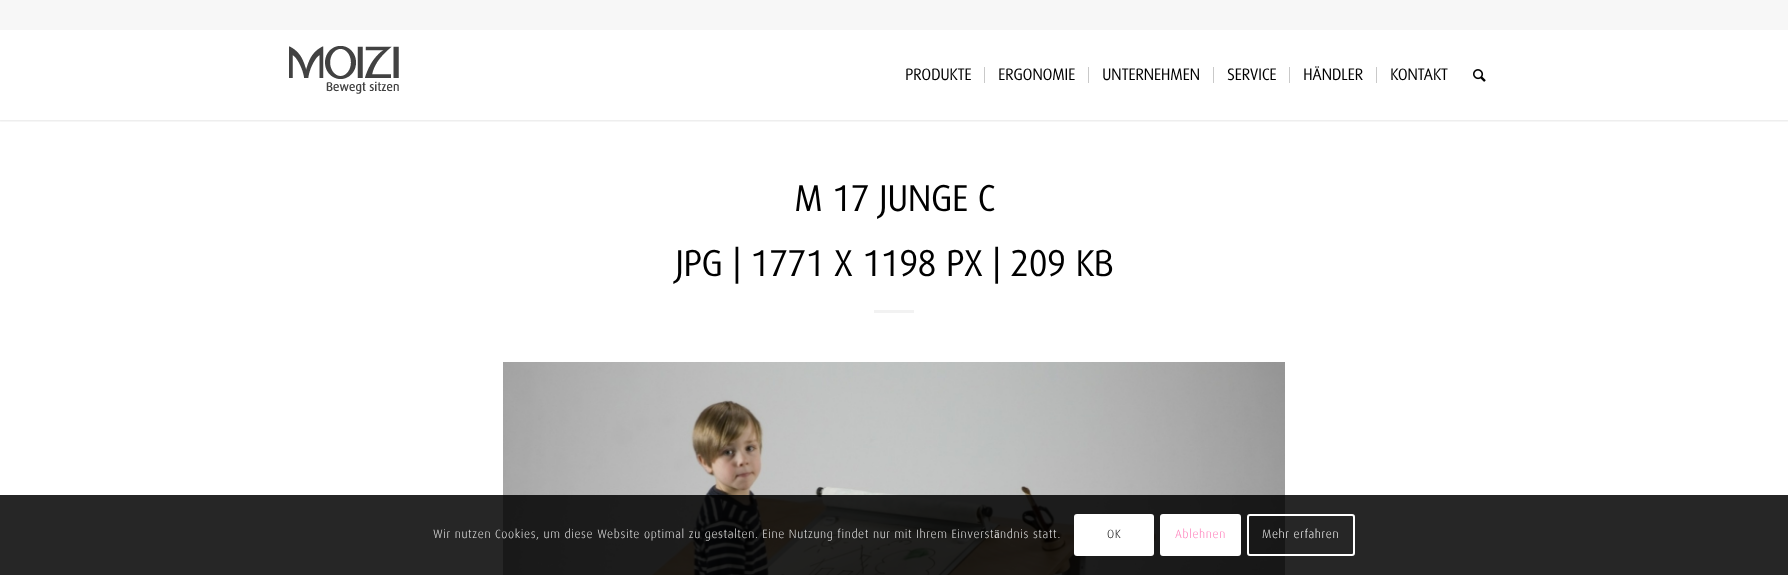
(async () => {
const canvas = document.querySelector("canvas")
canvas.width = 1788
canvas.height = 575
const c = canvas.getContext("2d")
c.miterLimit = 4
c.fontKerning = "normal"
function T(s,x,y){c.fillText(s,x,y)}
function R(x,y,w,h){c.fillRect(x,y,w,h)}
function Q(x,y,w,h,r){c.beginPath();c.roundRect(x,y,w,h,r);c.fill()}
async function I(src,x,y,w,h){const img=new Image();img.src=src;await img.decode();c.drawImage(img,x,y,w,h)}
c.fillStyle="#fff"
R(0,0,1788,575)
c.save()
c.beginPath()
c.rect(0,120,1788,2)
c.clip()
c.fillStyle="#0000001a"
c.filter="blur(1px)"
c.beginPath()
c.rect(-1,-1,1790,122)
c.fill()
c.filter="none"
c.restore()
c.fillStyle="#f7f7f7"
R(0,0,1788,30)
await I("1.png",289,46,110,48)
c.font="bold 16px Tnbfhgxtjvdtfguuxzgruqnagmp"
c.fillStyle="#000"
T("PRODUKTE",905,80)
T("ERGONOMIE",998,80)
c.fillStyle="#c9c9c9"
R(984,67,1,16)
c.fillStyle="#000"
T("UNTERNEHMEN",1102,80)
c.fillStyle="#c9c9c9"
R(1088,67,1,16)
c.fillStyle="#000"
T("SERVICE",1227,80)
c.fillStyle="#c9c9c9"
R(1213,67,1,16)
c.fillStyle="#000"
T("HÄNDLER",1303,80)
c.fillStyle="#c9c9c9"
R(1289,67,1,16)
c.fillStyle="#000"
T("KONTAKT",1390,80)
c.fillStyle="#c9c9c9"
R(1376,67,1,16)
await I("2.png",1473,69,13,13)
c.font="bold 36px Tnbfhgxtjvdtfguuxzgruqnagmp"
c.fillStyle="#000"
T("M 17 JUNGE C",794,211)
T("JPG | 1771 X 1198 PX | 209 KB",675,276)
c.fillStyle="#f2f2f2"
R(874,310,40,3)
await I("3.png",503,362,782,213)
c.fillStyle="#000000d9"
R(0,495,1788,80)
c.letterSpacing="0.6px"
c.font="300 12px Tnbfhgxtjvdtfguuxzgruqnagmp"
c.fillStyle="#e8e8e8"
T("Wir nutzen Cookies, um diese Website optimal zu gestalten. Eine Nutzung findet nur mit Ihrem Einverständnis statt.",433,538)
c.fillStyle="#fff"
Q(1074,514,80,42,3)
c.fillStyle="#000"
T("OK",1107,538)
c.fillStyle="#fff"
c.beginPath()
c.roundRect(1161,515,79,40,2)
c.fill()
c.strokeStyle="#fff"
c.lineWidth=2
c.stroke()
c.fillStyle="#ff75b5"
T("Ablehnen",1175,538)
c.beginPath()
c.roundRect(1248,515,106,40,2)
c.stroke()
c.fillStyle="#fff"
T("Mehr erfahren",1262,538)
})()
